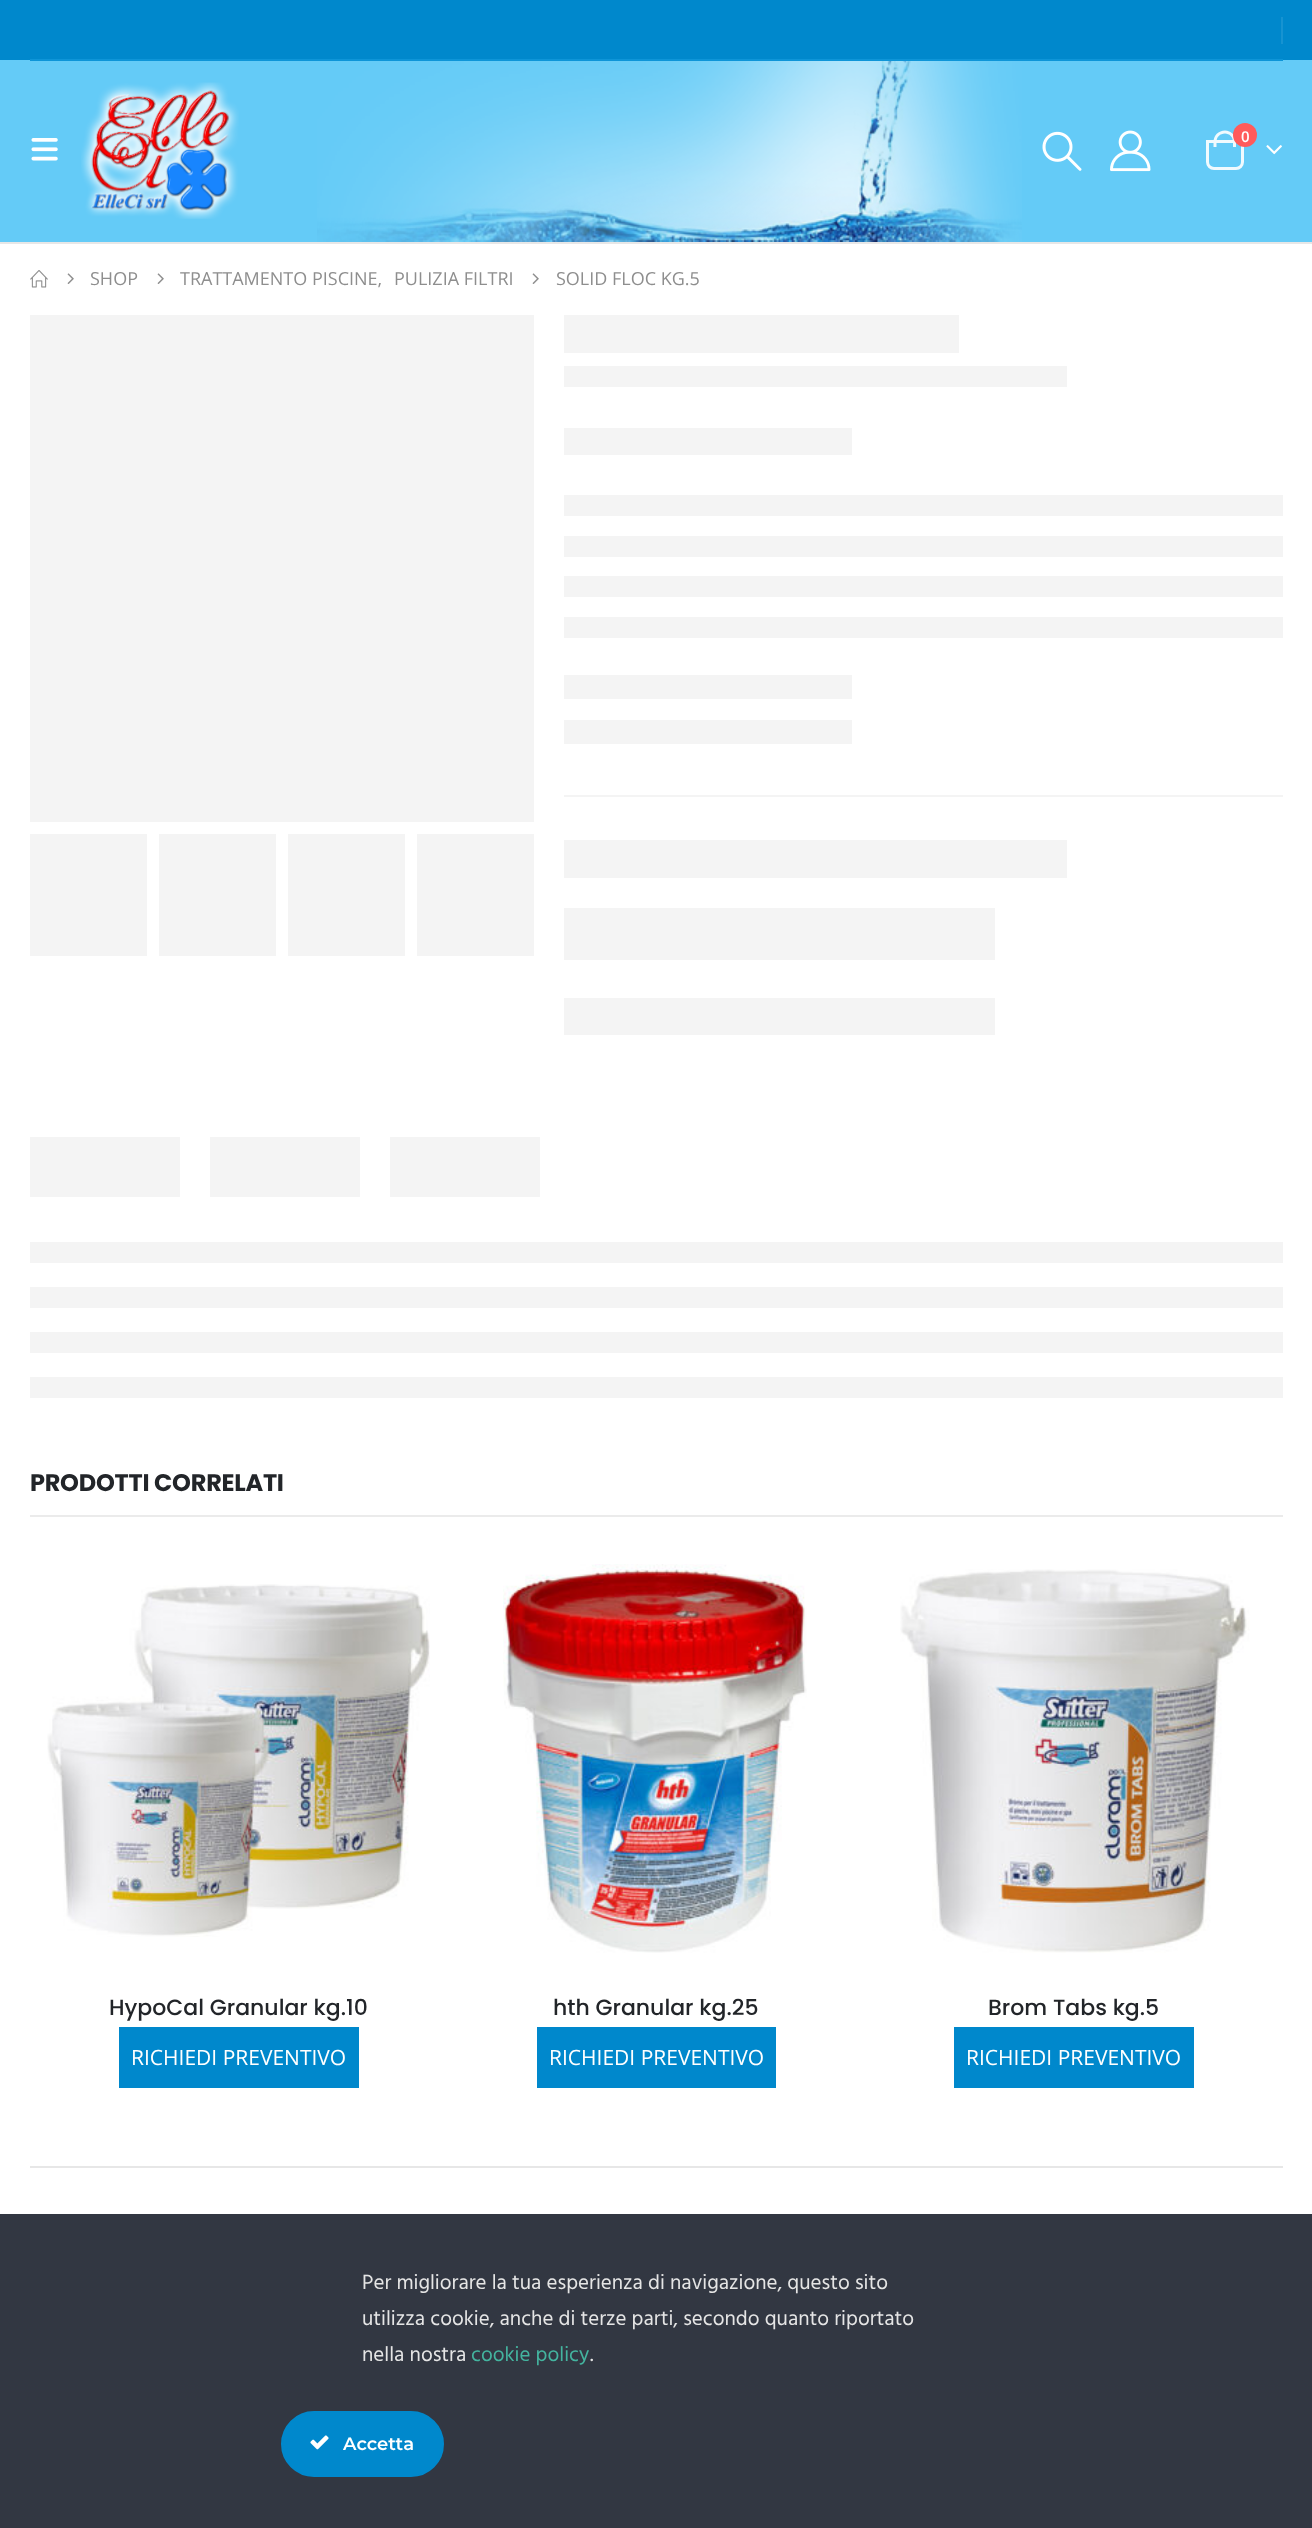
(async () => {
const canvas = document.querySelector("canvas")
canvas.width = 1312
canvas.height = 2528
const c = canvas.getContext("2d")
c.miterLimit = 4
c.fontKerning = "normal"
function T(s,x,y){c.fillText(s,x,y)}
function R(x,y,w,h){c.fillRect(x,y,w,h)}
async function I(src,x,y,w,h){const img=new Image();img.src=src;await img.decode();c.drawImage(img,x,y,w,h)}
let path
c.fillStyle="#fff"
R(0,0,1312,2528)
c.fillStyle="#e7e7e7"
R(0,242,1312,2)
c.fillStyle="#08c"
R(0,0,1312,60)
c.fillStyle="#1793d1"
R(1281,17,2,27)
c.fillStyle="#64cbf7"
R(0,60,1312,182)
c.fillStyle="#0e95d8"
R(30,59,1253,2)
await I("1.png",317,61,705,181)
await I("2.png",31,138,27,23)
await I("3.png",81,82,158,137)
await I("4.png",1042,131,40,40)
await I("5.png",1110,130,41,42)
c.beginPath()
c.roundRect(1207.5,141.5,35,27,[0,0,6.5,6.5])
c.strokeStyle="#f0fafe"
c.lineWidth=3
c.stroke()
c.fillStyle="#f0fafe"
path = new Path2D("M1225 130.5c6 0 11 5 11 11.5v5h-22.5v-5c0-6.5 5-11.5 11.5-11.5zm0 3c4.5 0 8 3.5 8 8.5v5h-16.5v-5c0-5 3.5-8.5 8.5-8.5z")
c.fill(path,"evenodd")
c.fillStyle="#ff5b5b"
c.beginPath()
c.arc(1245,135,12,0,7)
c.fill()
c.font="600 15px Open Sans"
c.fillStyle="#fff"
T("0",1241,142)
await I("6.png",1266,145,16,10)
await I("7.png",30,270,18,18)
await I("8.png",67,273,7,11)
c.font="18px Open Sans"
c.fillStyle="#8e8e8e"
T("SHOP",90,285)
await I("8.png",157,273,7,11)
T("TRATTAMENTO PISCINE,",180,285)
T("PULIZIA FILTRI",394,285)
await I("8.png",532,273,7,11)
T("SOLID FLOC KG.5",556,285)
c.fillStyle="#f4f4f4"
R(417,834,117,122)
R(288,834,117,122)
R(159,834,117,122)
R(30,834,117,122)
R(30,315,504,507)
R(564,998,431,37)
R(564,908,431,52)
R(564,840,503,38)
R(564,795,719,2)
R(564,720,288,24)
R(564,675,288,24)
R(564,617,719,21)
R(564,576,719,21)
R(564,536,719,21)
R(564,495,719,21)
R(564,428,288,27)
R(564,366,503,21)
R(564,315,395,38)
R(30,1377,1253,21)
R(30,1332,1253,21)
R(30,1287,1253,21)
R(30,1242,1253,21)
R(390,1137,150,60)
R(210,1137,150,60)
R(30,1137,150,60)
c.fillStyle="#ebebeb"
R(30,1515,1253,2)
c.letterSpacing="-0.25px"
c.font="bold 24px Poppins"
c.fillStyle="#222529"
T("PRODOTTI CORRELATI",30,1491)
await I("9.png",47,1584,383,353)
c.letterSpacing="0px"
c.font="500 22px Poppins"
T("HypoCal Granular kg.10",109,2015)
c.fillStyle="#08c"
R(119,2027,240,61)
c.font="21px Open Sans"
c.fillStyle="#fff"
T("RICHIEDI PREVENTIVO",131,2065)
await I("10.png",503,1564,304,389)
c.font="500 22px Poppins"
c.fillStyle="#222529"
T("hth Granular kg.25",553,2015)
c.fillStyle="#08c"
R(537,2027,239,61)
c.font="21px Open Sans"
c.fillStyle="#fff"
T("RICHIEDI PREVENTIVO",549,2065)
await I("11.png",900,1569,350,384)
c.font="500 22px Poppins"
c.fillStyle="#222529"
T("Brom Tabs kg.5",988,2015)
c.fillStyle="#08c"
R(954,2027,240,61)
c.font="21px Open Sans"
c.fillStyle="#fff"
T("RICHIEDI PREVENTIVO",966,2065)
c.fillStyle="#e7e7e7"
R(30,2166,1253,2)
c.fillStyle="#323742"
R(0,2214,1312,314)
c.font="21px Hind"
c.fillStyle="#e5e5e5"
T("Per migliorare la tua esperienza di navigazione, questo sito",362,2289)
T("utilizza cookie, anche di terze parti, secondo quanto riportato",362,2325)
T("nella nostra",362,2361)
c.fillStyle="#44b49f"
T("cookie policy",471,2361)
c.fillStyle="#e5e5e5"
T(".",590,2361)
c.fillStyle="#08c"
c.beginPath()
c.roundRect(282,2412,161,64,32)
c.fill()
c.strokeStyle="#08c"
c.lineWidth=2
c.stroke()
await I("12.png",310,2435,19,15)
c.font="600 18px Montserrat"
c.fillStyle="#fff"
T("Accetta",343,2450)
})()
